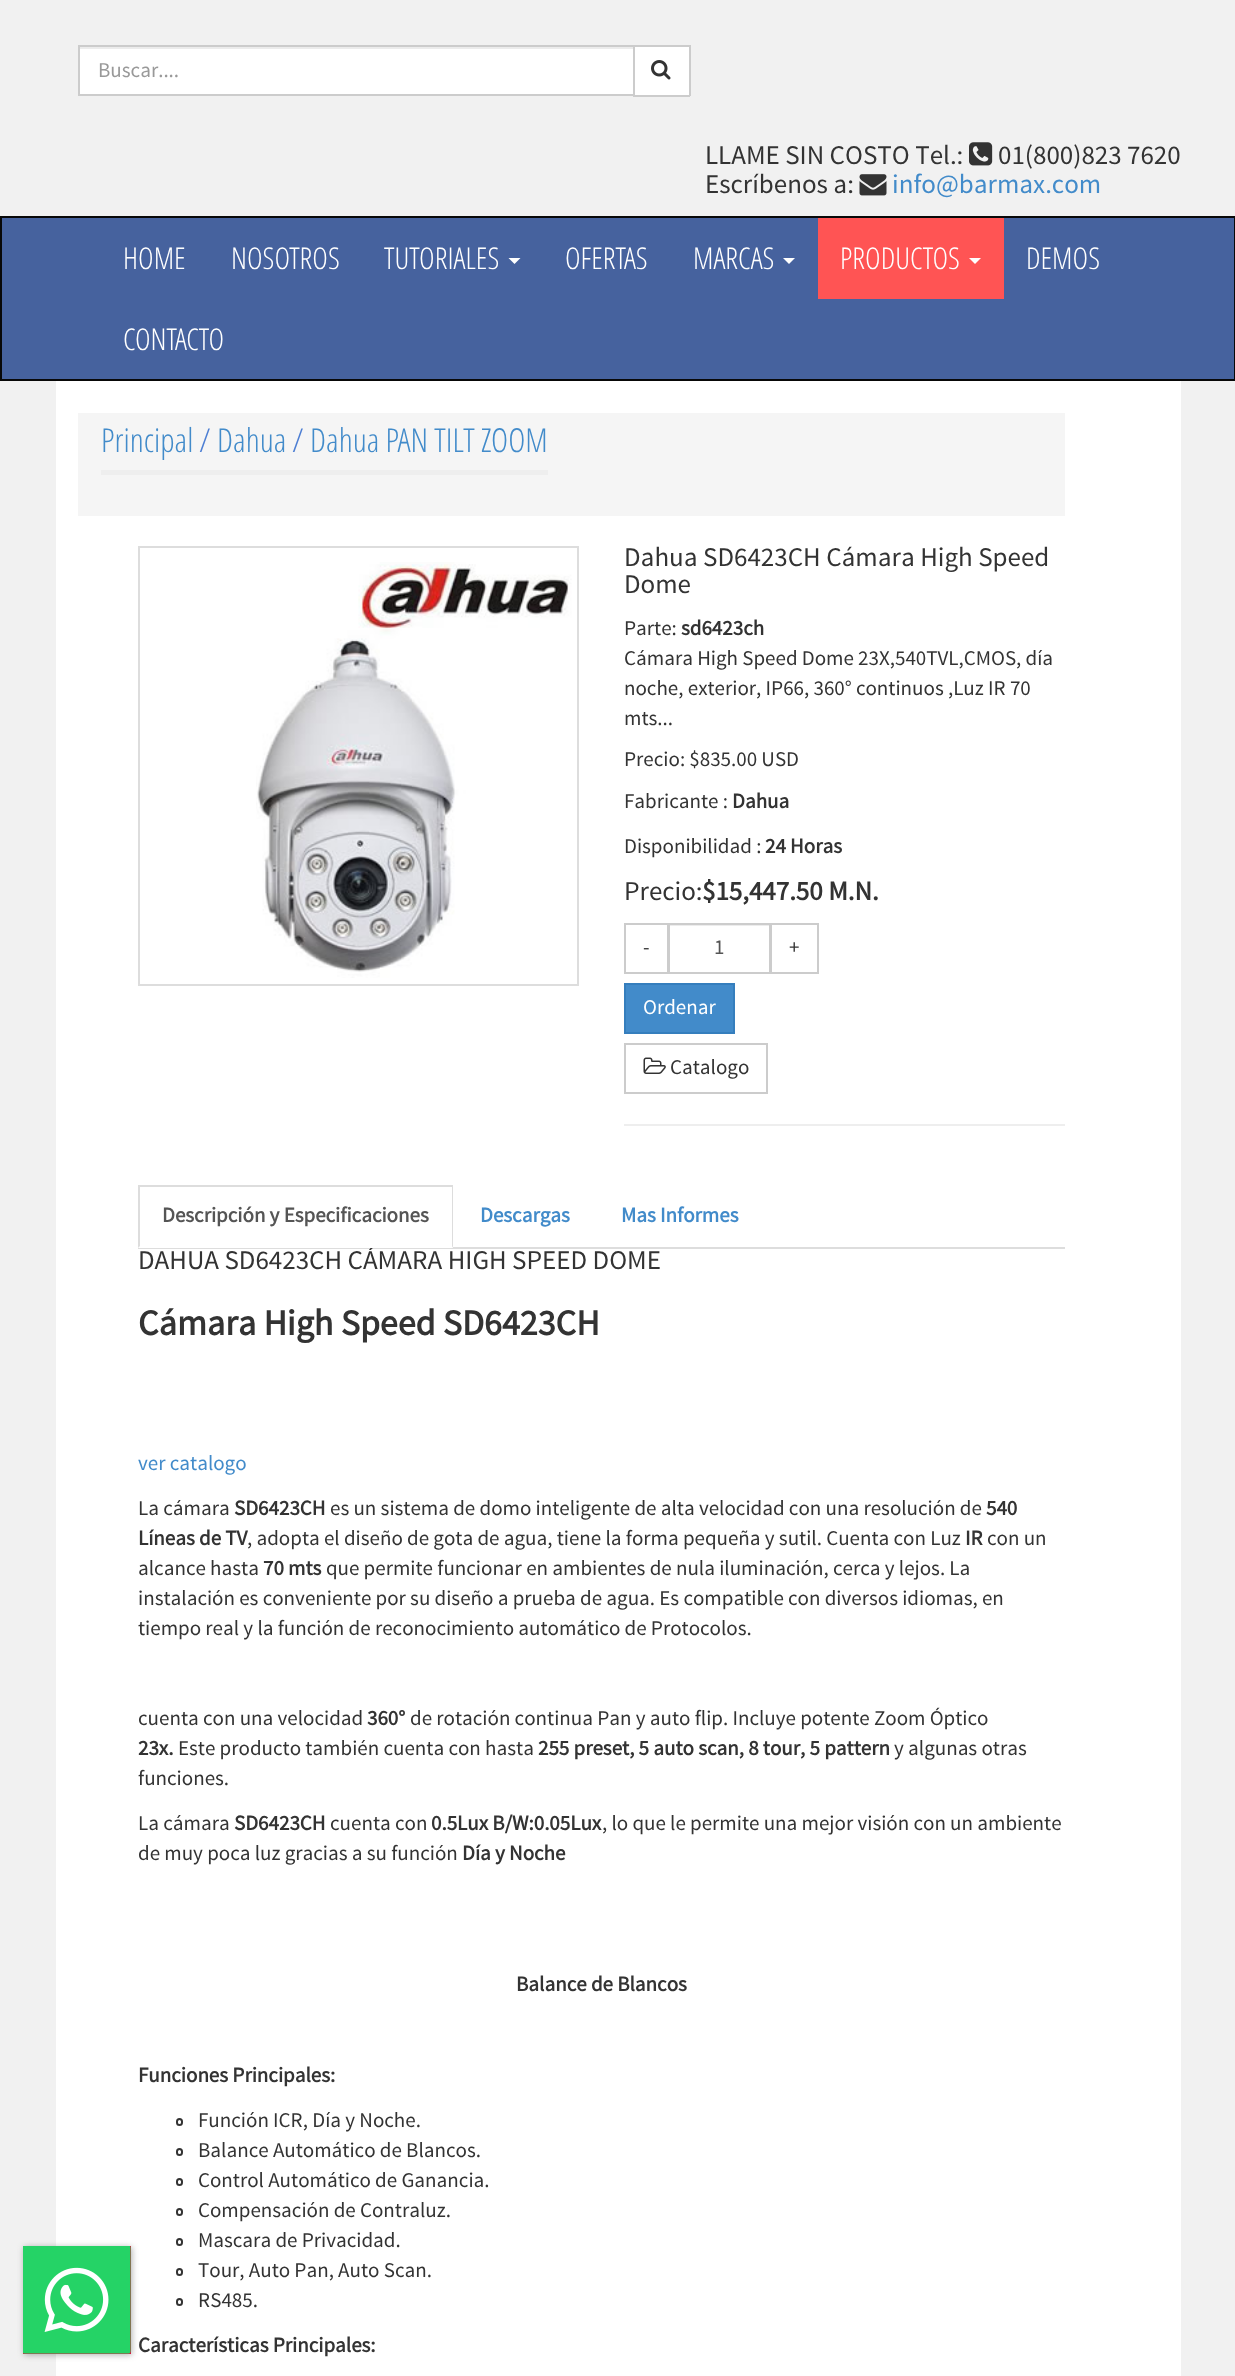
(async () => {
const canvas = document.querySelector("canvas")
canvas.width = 1235
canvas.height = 2376
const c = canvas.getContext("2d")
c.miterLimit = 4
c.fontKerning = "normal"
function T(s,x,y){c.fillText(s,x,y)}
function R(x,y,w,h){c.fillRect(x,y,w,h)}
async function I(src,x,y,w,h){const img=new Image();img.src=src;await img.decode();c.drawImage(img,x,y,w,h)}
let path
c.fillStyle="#f1f1f1"
R(0,0,1235,2376)
c.fillStyle="#fff"
R(80,49,553,45)
c.fillStyle="#ececec"
R(80,47,553,2)
c.fillStyle="#ccc"
R(633,45,57,2)
R(689,45,2,51)
R(633,95,57,2)
c.strokeStyle="#ccc"
c.lineWidth=2
c.strokeRect(79,46,555,49)
c.font="21px Source Sans Pro"
c.fillStyle="#999"
T("Buscar....",98,77)
c.fillStyle="#fff"
R(635,47,54,48)
await I("1.png",651,60,20,20)
c.font="27px Source Sans Pro"
c.fillStyle="#333"
T("LLAME SIN COSTO Tel.:",705,164)
await I("2.png",969,142,24,24)
T("01(800)823 7620",998,164)
T("Escríbenos a:",705,193)
await I("3.png",859,174,28,22)
c.fillStyle="#428bca"
T("info@barmax.com",892,193)
c.fillStyle="#46629e"
c.beginPath()
c.rect(1,217,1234,163)
c.fill()
c.strokeStyle="#080808"
c.stroke()
c.font="300 30px Open Sans"
c.fillStyle="#fff"
T("HOME",123,269)
T("NOSOTROS",231,269)
T("TUTORIALES",384,269)
path = new Path2D("M508.5 258h12l-6 6z")
c.fill(path)
T("OFERTAS",565,269)
T("MARCAS",693,269)
path = new Path2D("M783 258h12l-6 6z")
c.fill(path)
c.fillStyle="#ff5454"
R(818,218,186,81)
c.fillStyle="#fff"
T("PRODUCTOS",840,269)
path = new Path2D("M969 258h12l-6 6z")
c.fill(path)
T("DEMOS",1026,269)
T("CONTACTO",123,350)
R(56,381,1125,1995)
c.fillStyle="#3c3c3c66"
c.filter="blur(3px)"
c.beginPath()
c.rect(24,2247,108,108)
c.fill()
c.filter="none"
c.fillStyle="#dc143c"
R(23,2246,108,108)
await I("4.png",23,2246,108,108)
c.fillStyle="#f5f5f5"
R(78,413,987,103)
c.fillStyle="#eee"
R(101,470,447,5)
c.font="300 33px Open Sans"
c.fillStyle="#428bca"
T("Principal",101,452)
c.fillStyle="#4c7ed3"
T("/",199,452)
c.fillStyle="#428bca"
T("Dahua",217,452)
c.fillStyle="#4c7ed3"
T("/",292,452)
c.fillStyle="#428bca"
T("Dahua PAN TILT ZOOM",310,452)
c.strokeStyle="#ddd"
c.strokeRect(139,547,439,438)
await I("5.png",256,562,316,416)
c.font="27px Source Sans Pro"
c.fillStyle="#333"
T("Dahua SD6423CH Cámara High Speed",624,566)
T("Dome",624,593)
c.font="21px Source Sans Pro"
T("Parte:",624,635)
c.font="bold 21px Source Sans Pro"
T("sd6423ch",681,635)
c.font="21px Source Sans Pro"
T("Cámara High Speed Dome 23X,540TVL,CMOS, día",624,665)
T("noche, exterior, IP66, 360° continuos ,Luz IR 70",624,695)
T("mts...",624,725)
T("Precio: $835.00 USD",624,766)
T("Fabricante :",624,808)
c.font="bold 21px Source Sans Pro"
T("Dahua",732,808)
c.font="21px Source Sans Pro"
T("Disponibilidad :",624,853)
c.font="bold 21px Source Sans Pro"
T("24 Horas",765,853)
c.font="27px Source Sans Pro"
T("Precio:",624,900)
c.font="bold 27px Source Sans Pro"
T("$15,447.50 M.N.",702,900)
c.strokeStyle="#ccc"
c.strokeRect(625,924,43,49)
c.font="21px Source Sans Pro"
T("-",643,954)
c.fillStyle="#ececec"
R(669,925,101,1)
c.strokeRect(771,924,47,49)
c.strokeRect(669,924,101,49)
c.fillStyle="#555"
T("1",714,954)
c.fillStyle="#333"
T("+",789,954)
c.fillStyle="#428bca"
c.beginPath()
c.rect(625,984,109,49)
c.fill()
c.strokeStyle="#357ebd"
c.stroke()
c.fillStyle="#fff"
T("Ordenar",643,1014)
c.strokeStyle="#ccc"
c.strokeRect(625,1044,142,49)
await I("6.png",643,1057,23,17)
c.fillStyle="#333"
T("Catalogo",670,1074)
c.fillStyle="#eee"
R(624,1124,441,2)
c.fillStyle="#ddd"
R(138,1247,927,2)
c.font="27px Source Sans Pro"
c.fillStyle="#333"
T("DAHUA SD6423CH CÁMARA HIGH SPEED DOME",138,1269)
c.fillStyle="#fff"
R(138,1246,315,2)
c.fillStyle="#ddd"
R(138,1185,315,2)
path = new Path2D("M453 1185v63l-1-2v-60z")
c.fill(path)
path = new Path2D("M138 1248v-63l2 1v60z")
c.fill(path)
c.font="bold 21px Source Sans Pro"
c.fillStyle="#555"
T("Descripción y Especificaciones",162,1222)
c.fillStyle="#428bca"
T("Descargas",480,1222)
T("Mas Informes",621,1222)
c.font="bold 36px Source Sans Pro"
c.fillStyle="#333"
T("Cámara High Speed SD6423CH",138,1335)
c.font="21px Source Sans Pro"
c.fillStyle="#428bca"
T("ver catalogo",138,1470)
c.fillStyle="#333"
T("La cámara",138,1515)
c.font="bold 21px Source Sans Pro"
T("SD6423CH",234,1515)
c.font="21px Source Sans Pro"
T("es un sistema de domo inteligente de alta velocidad con una resolución de",330,1515)
c.font="bold 21px Source Sans Pro"
T("540",986,1515)
T("Líneas de TV",138,1545)
c.font="21px Source Sans Pro"
T(", adopta el diseño de gota de agua, tiene la forma pequeña y sutil. Cuenta con Luz",247,1545)
c.font="bold 21px Source Sans Pro"
T("IR",965,1545)
c.font="21px Source Sans Pro"
T("con un",987,1545)
T("alcance hasta",138,1575)
c.font="bold 21px Source Sans Pro"
T("70 mts",263,1575)
c.font="21px Source Sans Pro"
T("que permite funcionar en ambientes de nula iluminación, cerca y lejos. La",326,1575)
T("instalación es conveniente por su diseño a prueba de agua. Es compatible con diversos idiomas, en",138,1605)
T("tiempo real y la función de reconocimiento automático de Protocolos.",138,1635)
T("cuenta con una velocidad",138,1725)
c.font="bold 21px Source Sans Pro"
T("360°",367,1725)
c.font="21px Source Sans Pro"
T("de rotación continua Pan y auto flip. Incluye potente Zoom Óptico",410,1725)
c.font="bold 21px Source Sans Pro"
T("23x.",138,1755)
c.font="21px Source Sans Pro"
T("Este producto también cuenta con hasta",178,1755)
c.font="bold 21px Source Sans Pro"
T("255 preset, 5 auto scan, 8 tour, 5 pattern",538,1755)
c.font="21px Source Sans Pro"
T("y algunas otras",894,1755)
T("funciones.",138,1785)
T("La cámara",138,1830)
c.font="bold 21px Source Sans Pro"
T("SD6423CH",234,1830)
c.font="21px Source Sans Pro"
T("cuenta con",330,1830)
c.font="bold 21px Source Sans Pro"
T("0.5Lux B/W:0.05Lux",431,1830)
c.font="21px Source Sans Pro"
T(", lo que le permite una mejor visión con un ambiente",602,1830)
T("de muy poca luz gracias a su función",138,1860)
c.font="bold 21px Source Sans Pro"
T("Día y Noche",462,1860)
T("Balance de Blancos",516,1991)
T("Funciones Principales:",138,2082)
c.beginPath()
c.roundRect(177,2119,5,6,2.5)
c.strokeStyle="#333"
c.stroke()
c.font="21px Source Sans Pro"
T("Función ICR, Día y Noche.",198,2127)
c.beginPath()
c.roundRect(177,2149,5,6,2.5)
c.stroke()
T("Balance Automático de Blancos.",198,2157)
c.beginPath()
c.roundRect(177,2179,5,6,2.5)
c.stroke()
T("Control Automático de Ganancia.",198,2187)
c.beginPath()
c.roundRect(177,2209,5,6,2.5)
c.stroke()
T("Compensación de Contraluz.",198,2217)
c.beginPath()
c.roundRect(177,2239,5,6,2.5)
c.stroke()
T("Mascara de Privacidad.",198,2247)
c.beginPath()
c.roundRect(177,2269,5,6,2.5)
c.stroke()
T("Tour, Auto Pan, Auto Scan.",198,2277)
c.beginPath()
c.roundRect(177,2299,5,6,2.5)
c.stroke()
T("RS485.",198,2307)
c.font="bold 21px Source Sans Pro"
T("Características Principales:",138,2352)
})()
